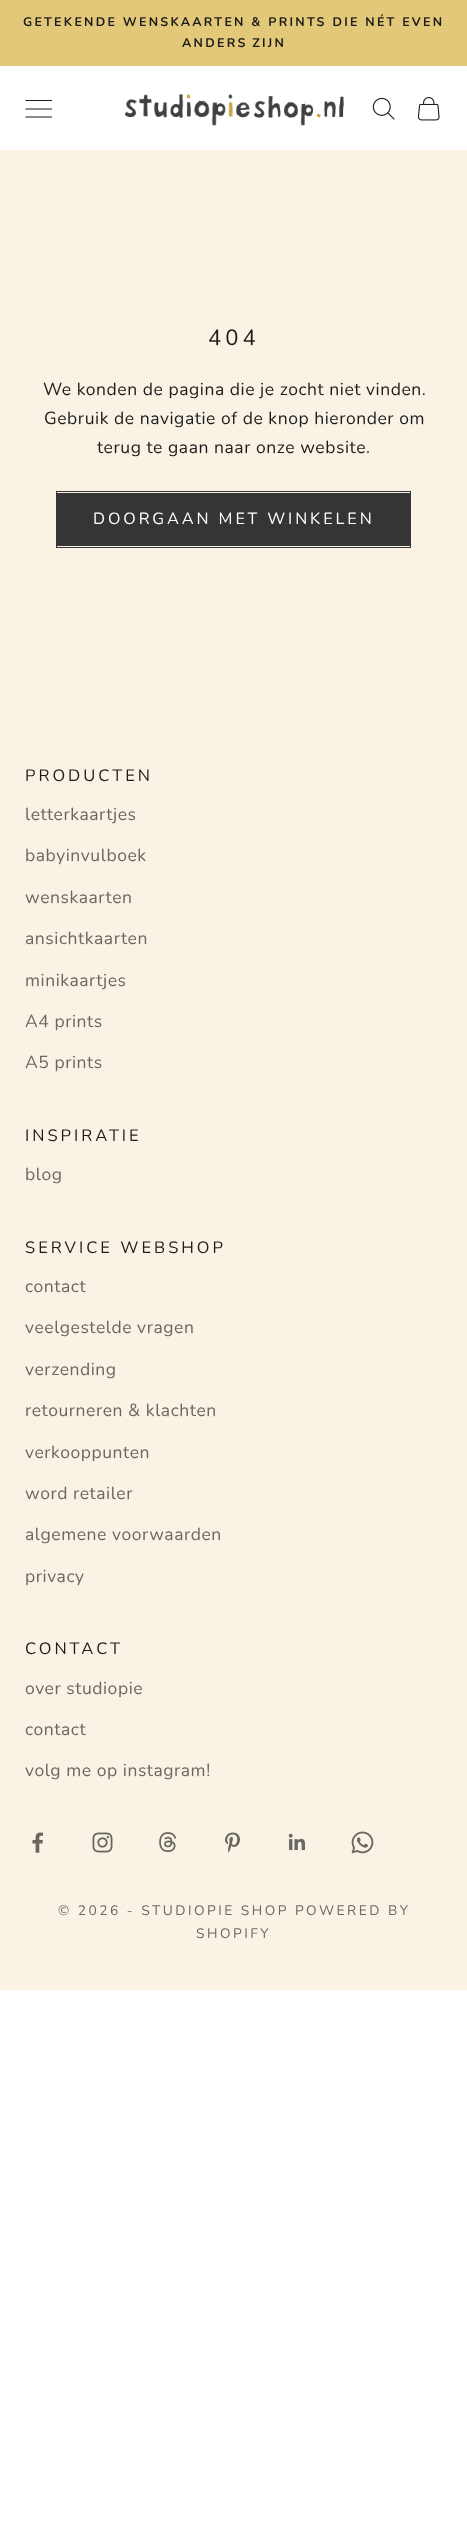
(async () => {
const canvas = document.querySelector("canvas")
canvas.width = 467
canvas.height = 2541
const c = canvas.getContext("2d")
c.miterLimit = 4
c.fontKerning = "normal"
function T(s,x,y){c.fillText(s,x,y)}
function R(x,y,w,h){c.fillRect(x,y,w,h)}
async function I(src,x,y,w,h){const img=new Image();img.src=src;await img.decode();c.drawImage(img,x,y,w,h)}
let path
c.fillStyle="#fff"
R(0,0,467,2541)
c.fillStyle="#e2c878"
R(0,0,467,66)
c.letterSpacing="2.25px"
c.font="bold 12.5px Nunito"
c.fillStyle="#1c1c1c"
T("GETEKENDE WENSKAARTEN & PRINTS DIE NÉT EVEN",23,26)
c.wordSpacing="-1px"
T("ANDERS ZIJN",182,47)
path = new Path2D("M26 117h25.5m-25.5-8h25.5m-25.5-8.5h25.5")
c.strokeStyle="#1c1c1c"
c.lineWidth=1.1
c.lineCap="square"
c.stroke(path)
await I("1.png",125,94,219,32)
await I("2.png",372,97,23,23)
await I("3.png",417,97,23,24)
c.fillStyle="#faf3e5"
R(0,150,467,1840)
c.letterSpacing="4px"
c.wordSpacing="0px"
c.font="22px Nunito"
c.fillStyle="#1c1c1c"
T("404",208,345)
c.letterSpacing="0.55px"
c.font="17.5px Nunito"
T("We konden de pagina die je zocht niet vinden.",43,395)
T("Gebruik de navigatie of de knop hieronder om",44,424)
T("terug te gaan naar onze website.",97,453)
c.fillStyle="#353535"
R(57,493,353,53)
c.strokeStyle="#353535"
c.lineWidth=1
c.strokeRect(56.5,491.5,354,56)
c.letterSpacing="2.9px"
c.font="16.25px Nunito"
c.fillStyle="#fff"
T("DOORGAAN MET WINKELEN",93,524)
c.letterSpacing="3px"
c.font="16.5px Nunito"
c.fillStyle="#1c1c1c"
T("PRODUCTEN",25,781)
c.letterSpacing="0.55px"
c.font="17.5px Nunito"
c.fillStyle="#6a6762"
T("letterkaartjes",25,820)
T("babyinvulboek",25,861)
T("wenskaarten",25,903)
T("ansichtkaarten",25,944)
T("minikaartjes",25,986)
T("A4 prints",25,1027)
T("A5 prints",25,1068)
c.letterSpacing="3px"
c.font="16.5px Nunito"
c.fillStyle="#1c1c1c"
T("INSPIRATIE",25,1141)
c.letterSpacing="0.55px"
c.font="17.5px Nunito"
c.fillStyle="#6a6762"
T("blog",25,1180)
c.letterSpacing="3px"
c.font="16.5px Nunito"
c.fillStyle="#1c1c1c"
T("SERVICE WEBSHOP",25,1253)
c.letterSpacing="0.55px"
c.font="17.5px Nunito"
c.fillStyle="#6a6762"
T("contact",25,1292)
T("veelgestelde vragen",25,1333)
T("verzending",25,1375)
T("retourneren & klachten",25,1416)
T("verkooppunten",25,1458)
T("word retailer",25,1499)
T("algemene voorwaarden",25,1540)
T("privacy",25,1582)
c.letterSpacing="3px"
c.font="16.5px Nunito"
c.fillStyle="#1c1c1c"
T("CONTACT",25,1654)
c.letterSpacing="0.55px"
c.font="17.5px Nunito"
c.fillStyle="#6a6762"
T("over studiopie",25,1694)
T("contact",25,1735)
T("volg me op instagram!",25,1776)
await I("4.png",32,1832,11,21)
await I("5.png",92,1832,21,21)
await I("6.png",159,1832,18,21)
await I("7.png",225,1832,15,21)
await I("8.png",288,1833,17,17)
await I("9.png",351,1831,23,23)
c.letterSpacing="2.5px"
c.font="13.75px Nunito"
T("© 2026 - STUDIOPIE SHOP POWERED BY",58,1915)
T("SHOPIFY",196,1938)
})()
